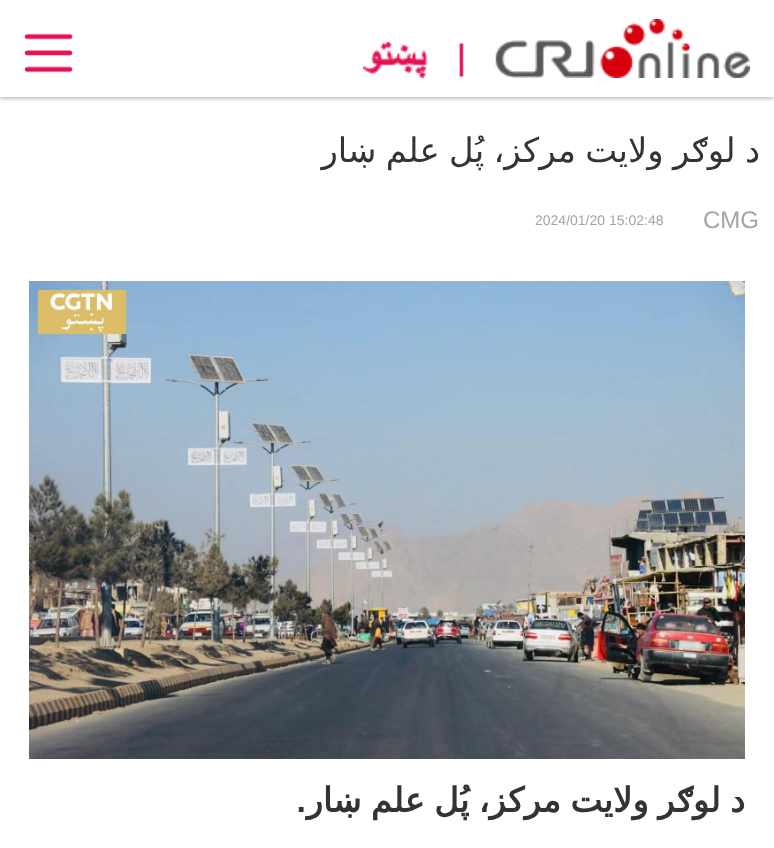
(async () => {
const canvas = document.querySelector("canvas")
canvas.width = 774
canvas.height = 848
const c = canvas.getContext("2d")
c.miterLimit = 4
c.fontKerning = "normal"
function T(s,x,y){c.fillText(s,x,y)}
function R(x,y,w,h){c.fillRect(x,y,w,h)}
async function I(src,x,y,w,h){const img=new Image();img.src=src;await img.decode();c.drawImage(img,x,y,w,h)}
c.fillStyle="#fff"
R(0,0,774,848)
c.save()
c.beginPath()
c.rect(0,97,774,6)
c.clip()
c.fillStyle="#a6a6a6"
c.filter="blur(2.5px)"
c.beginPath()
c.rect(0,1,774,97)
c.fill()
c.filter="none"
c.restore()
await I("1.png",363,19,387,59)
await I("2.png",24,33,49,40)
c.wordSpacing="-1.5px"
c.direction="rtl"
c.font="33.9px DejaVu Sans"
c.fillStyle="#333"
T("د لوګر ولایت مرکز، پُل علم ښار",760,162)
c.wordSpacing="0px"
c.direction="ltr"
c.font="24px Liberation Sans"
c.fillStyle="#a4a4a4"
T("CMG",703,228)
c.font="14px Liberation Sans"
T("2024/01/20 15:02:48",535,225)
await I("3.png",29,281,716,478)
c.wordSpacing="-1.5px"
c.direction="rtl"
c.font="bold 33.9px DejaVu Sans"
c.fillStyle="#333"
T("د لوګر ولایت مرکز، پُل علم ښار",745,812)
c.wordSpacing="0px"
c.font="bold 33.9px Liberation Sans"
T(".",306,812)
})()
